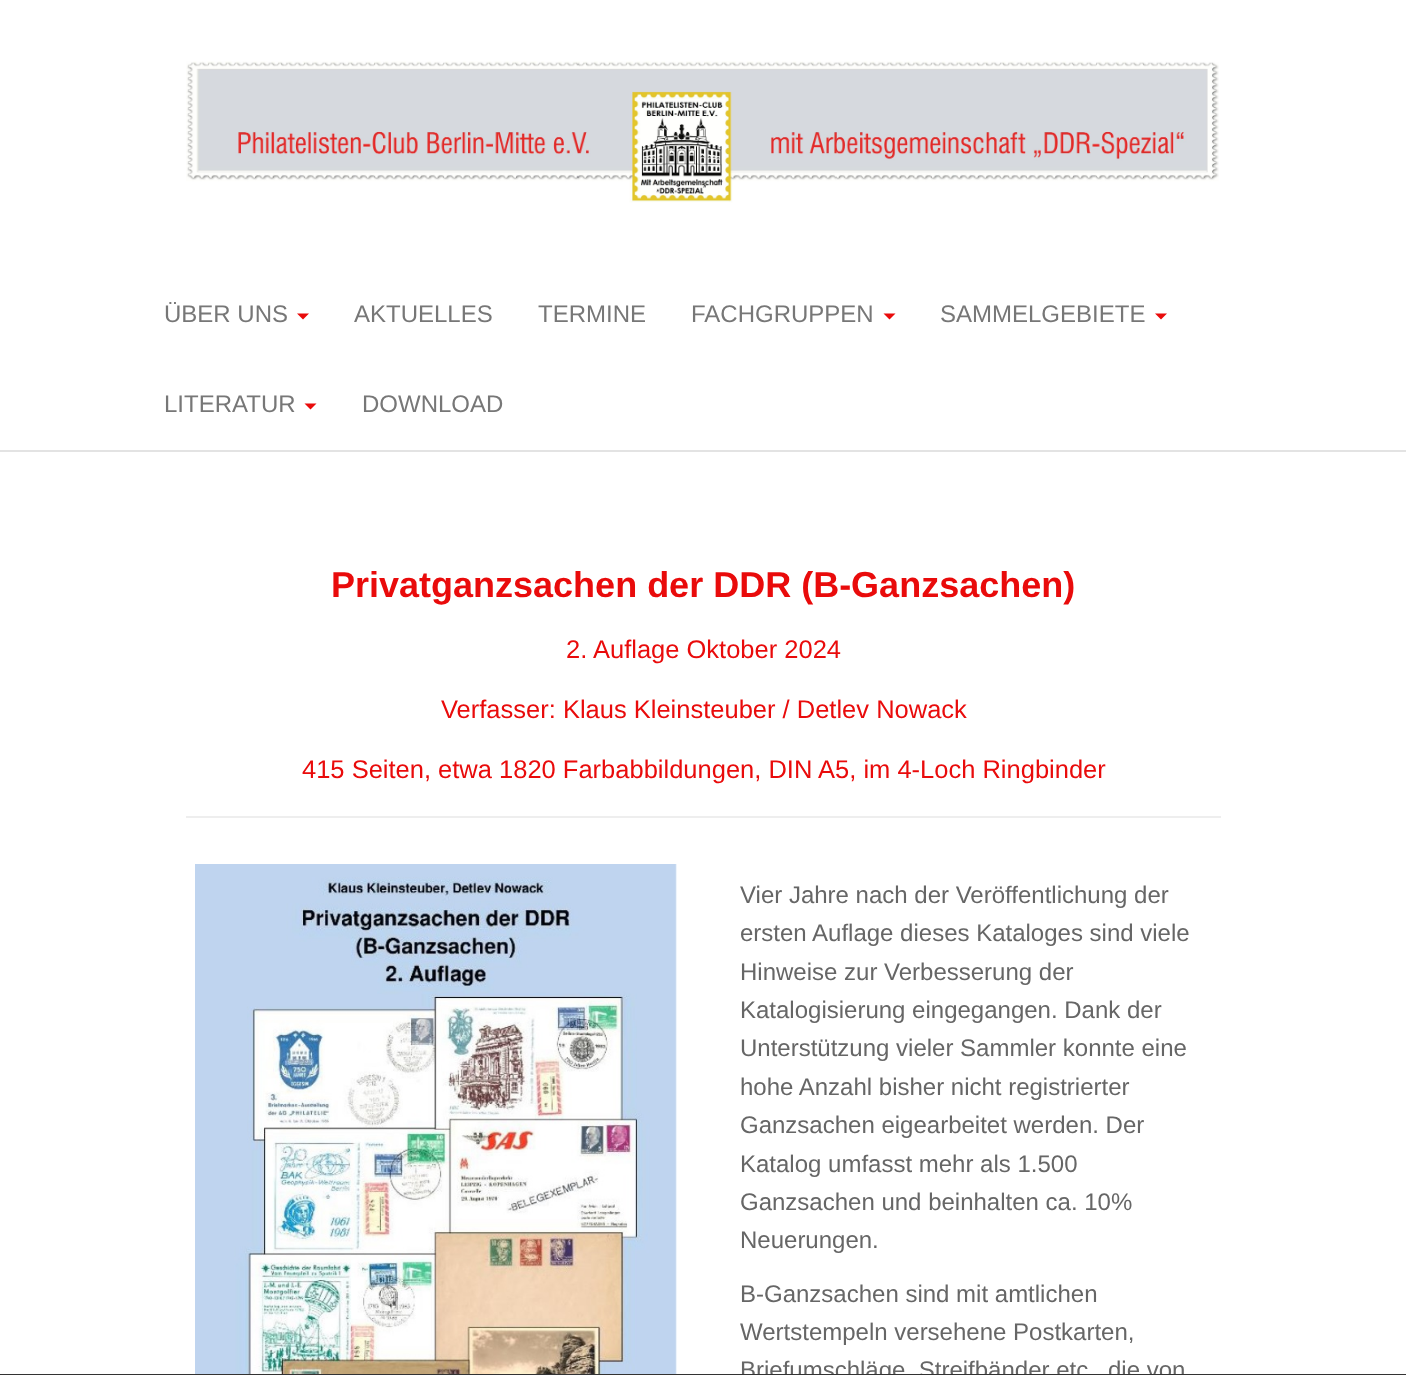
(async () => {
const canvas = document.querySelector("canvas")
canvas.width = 1406
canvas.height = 1375
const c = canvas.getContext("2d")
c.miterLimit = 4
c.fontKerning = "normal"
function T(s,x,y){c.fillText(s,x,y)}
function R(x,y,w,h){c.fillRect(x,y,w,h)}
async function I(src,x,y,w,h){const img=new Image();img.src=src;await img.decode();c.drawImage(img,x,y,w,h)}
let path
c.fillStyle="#fff"
R(0,0,1406,1375)
await I("1.png",186,61,1033,142)
c.fillStyle="#e3e3e3"
R(0,450,1406,2)
c.font="24px Liberation Sans"
c.fillStyle="#777"
T("ÜBER UNS",164,322)
c.fillStyle="#e90b0b"
path = new Path2D("M297 313.5h12l-6 6z")
c.fill(path)
c.fillStyle="#777"
T("AKTUELLES",354,322)
T("TERMINE",538,322)
T("FACHGRUPPEN",691,322)
c.fillStyle="#e90b0b"
path = new Path2D("M883.5 313.5h12l-6 6z")
c.fill(path)
c.fillStyle="#777"
T("SAMMELGEBIETE",940,322)
c.fillStyle="#e90b0b"
path = new Path2D("M1155 313.5h12l-6 6z")
c.fill(path)
c.fillStyle="#777"
T("LITERATUR",164,412)
c.fillStyle="#e90b0b"
path = new Path2D("M304.5 403.5h12l-6 6z")
c.fill(path)
c.fillStyle="#777"
T("DOWNLOAD",362,412)
c.font="bold 36px Liberation Sans"
c.fillStyle="#e90b0b"
T("Privatganzsachen der DDR (B-Ganzsachen)",331,597)
c.font="25.5px Liberation Sans"
T("2. Auflage Oktober 2024",566,658)
T("Verfasser: Klaus Kleinsteuber / Detlev Nowack",441,718)
T("415 Seiten, etwa 1820 Farbabbildungen, DIN A5, im 4-Loch Ringbinder",302,778)
c.fillStyle="#eee"
R(186,816,1035,2)
await I("2.png",195,864,482,510)
c.font="24px Liberation Sans"
c.fillStyle="#666"
T("Vier Jahre nach der Veröffentlichung der",740,903)
T("ersten Auflage dieses Kataloges sind viele",740,941)
T("Hinweise zur Verbesserung der",740,980)
T("Katalogisierung eingegangen. Dank der",740,1018)
T("Unterstützung vieler Sammler konnte eine",740,1056)
T("hohe Anzahl bisher nicht registrierter",740,1095)
T("Ganzsachen eigearbeitet werden. Der",740,1133)
T("Katalog umfasst mehr als 1.500",740,1172)
T("Ganzsachen und beinhalten ca. 10%",740,1210)
T("Neuerungen.",740,1248)
T("B-Ganzsachen sind mit amtlichen",740,1302)
T("Wertstempeln versehene Postkarten,",740,1340)
T("Briefumschläge, Streifbänder etc",740,1378)
T("die von",1108,1378)
c.fillStyle="#333"
R(0,1374,1406,1)
})()
